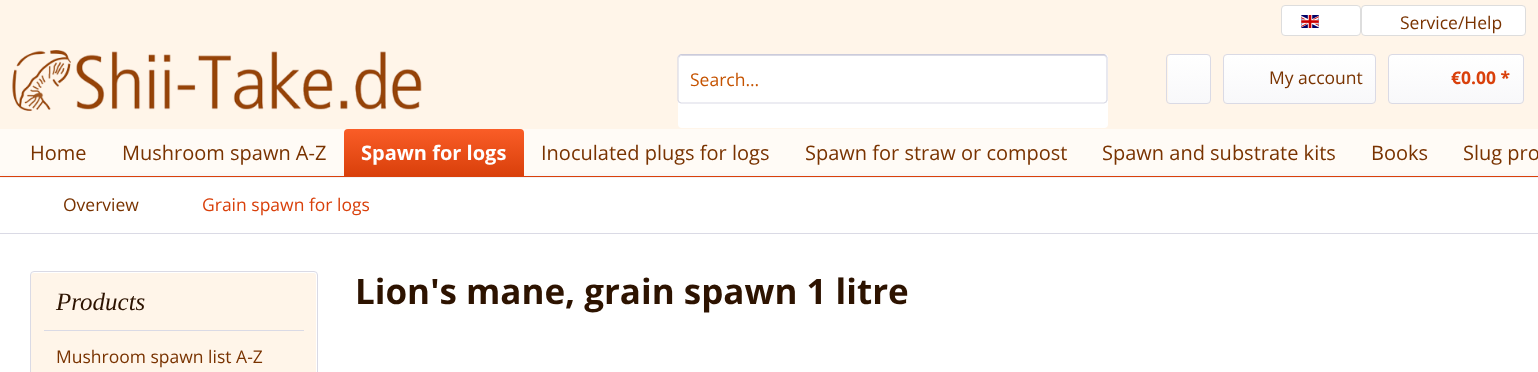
(async () => {
const canvas = document.querySelector("canvas")
canvas.width = 1538
canvas.height = 372
const c = canvas.getContext("2d")
c.miterLimit = 4
c.fontKerning = "normal"
function T(s,x,y){c.fillText(s,x,y)}
function R(x,y,w,h){c.fillRect(x,y,w,h)}
function Q(x,y,w,h,r){c.beginPath();c.roundRect(x,y,w,h,r);c.fill()}
async function I(src,x,y,w,h){const img=new Image();img.src=src;await img.decode();c.drawImage(img,x,y,w,h)}
let gradient, path
c.fillStyle="#fff5e9"
R(0,0,1538,372)
c.fillStyle="#fffbf6"
R(0,129,1538,49)
c.fillStyle="#fff"
c.beginPath()
c.roundRect(1281.5,5.5,79,30,3.5)
c.fill()
c.strokeStyle="#ddd"
c.stroke()
await I("1.png",1301,15,18,13)
c.beginPath()
c.roundRect(1361.5,5.5,164,30,3.5)
c.fill()
c.stroke()
c.font="17.5px Open Sans"
c.fillStyle="#793300"
T("Service/Help",1400,29)
await I("2.png",12,50,410,61)
c.fillStyle="#fff"
Q(678,54,430,74,4)
Q(678,54,430,50,4)
c.fillStyle="#dadae5"
path = new Path2D("M681 56h423c1 0 2 1 2 3c0-2 0-4-2-4h-422l-3 1v3c0-2 1-3 2-3z")
c.fill(path)
path = new Path2D("M679 55.5l2-1h423l2 1")
c.strokeStyle="#cbcbdb"
c.lineWidth=1.2
c.stroke(path)
path = new Path2D("M1106 55.5l1 2v42.5l-1 2l-2 1h-423l-2-1l-1-2v-42.5l1-2")
c.strokeStyle="#dadae5"
c.stroke(path)
c.fillStyle="#c55300"
T("Search...",690,86)
gradient = c.createLinearGradient(1189,55,1189,103)
gradient.addColorStop(0,"#fff")
gradient.addColorStop(1,"#f8f8fa")
c.fillStyle = gradient
Q(1168,55,42,48,2.5)
c.beginPath()
c.roundRect(1166.5,54.5,44,49,3.5)
c.lineWidth=1
c.stroke()
gradient = c.createLinearGradient(1299,55,1299,103)
gradient.addColorStop(0,"#fff")
gradient.addColorStop(1,"#f8f8fa")
c.fillStyle = gradient
Q(1224,55,151,48,2.5)
c.beginPath()
c.roundRect(1223.5,54.5,152,49,3.5)
c.stroke()
c.fillStyle="#793300"
T("My account",1269,84)
gradient = c.createLinearGradient(1456,55,1456,103)
gradient.addColorStop(0,"#fff")
gradient.addColorStop(1,"#f8f8fa")
c.fillStyle = gradient
Q(1389,55,134,48,2.5)
c.beginPath()
c.roundRect(1388.5,54.5,135,49,3.5)
c.stroke()
c.font="bold 17.5px Open Sans"
c.fillStyle="#d9400b"
T("€0.00 *",1451,84)
c.fillStyle="#f0f0f5"
c.filter="blur(2.5px)"
c.beginPath()
c.rect(-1,176,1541,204)
c.fill()
c.filter="none"
c.fillStyle="#d9400b"
R(0,176,1538,1)
c.font="20px Open Sans"
c.fillStyle="#793300"
T("Home",30,160)
T("Mushroom spawn A-Z",122,160)
gradient = c.createLinearGradient(434,129,434,176)
gradient.addColorStop(0,"#fa5d27")
gradient.addColorStop(1,"#d9400b")
c.fillStyle = gradient
c.beginPath()
c.roundRect(344,129,180,47,[4,4,0,0])
c.fill()
c.font="bold 20px Open Sans"
c.fillStyle="#fff"
T("Spawn for logs",361,160)
c.font="20px Open Sans"
c.fillStyle="#793300"
T("Inoculated plugs for logs",541,160)
T("Spawn for straw or compost",805,160)
T("Spawn and substrate kits",1102,160)
T("Books",1371,160)
T("Slug pro",1463,160)
c.fillStyle="#fff"
R(0,178,1538,194)
c.fillStyle="#dadae5"
R(0,233,1538,1)
c.font="17.5px Open Sans"
c.fillStyle="#793300"
T("Overview",63,211)
c.fillStyle="#d9400b"
T("Grain spawn for logs",202,211)
c.fillStyle="#fff5e9"
Q(31,273,285,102,2.5)
c.beginPath()
c.roundRect(30.5,271.5,287,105,3.5)
c.stroke()
c.fillStyle="#dadae5"
R(44,330,260,1)
c.font="italic 25px Liberation Serif"
c.fillStyle="#2d1300"
T("Products",56,310)
c.font="17.5px Open Sans"
c.fillStyle="#793300"
T("Mushroom spawn list A-Z",56,363)
c.font="bold 35px Open Sans"
c.fillStyle="#2d1300"
T("Lion's mane, grain spawn 1 litre",355,304)
})()
